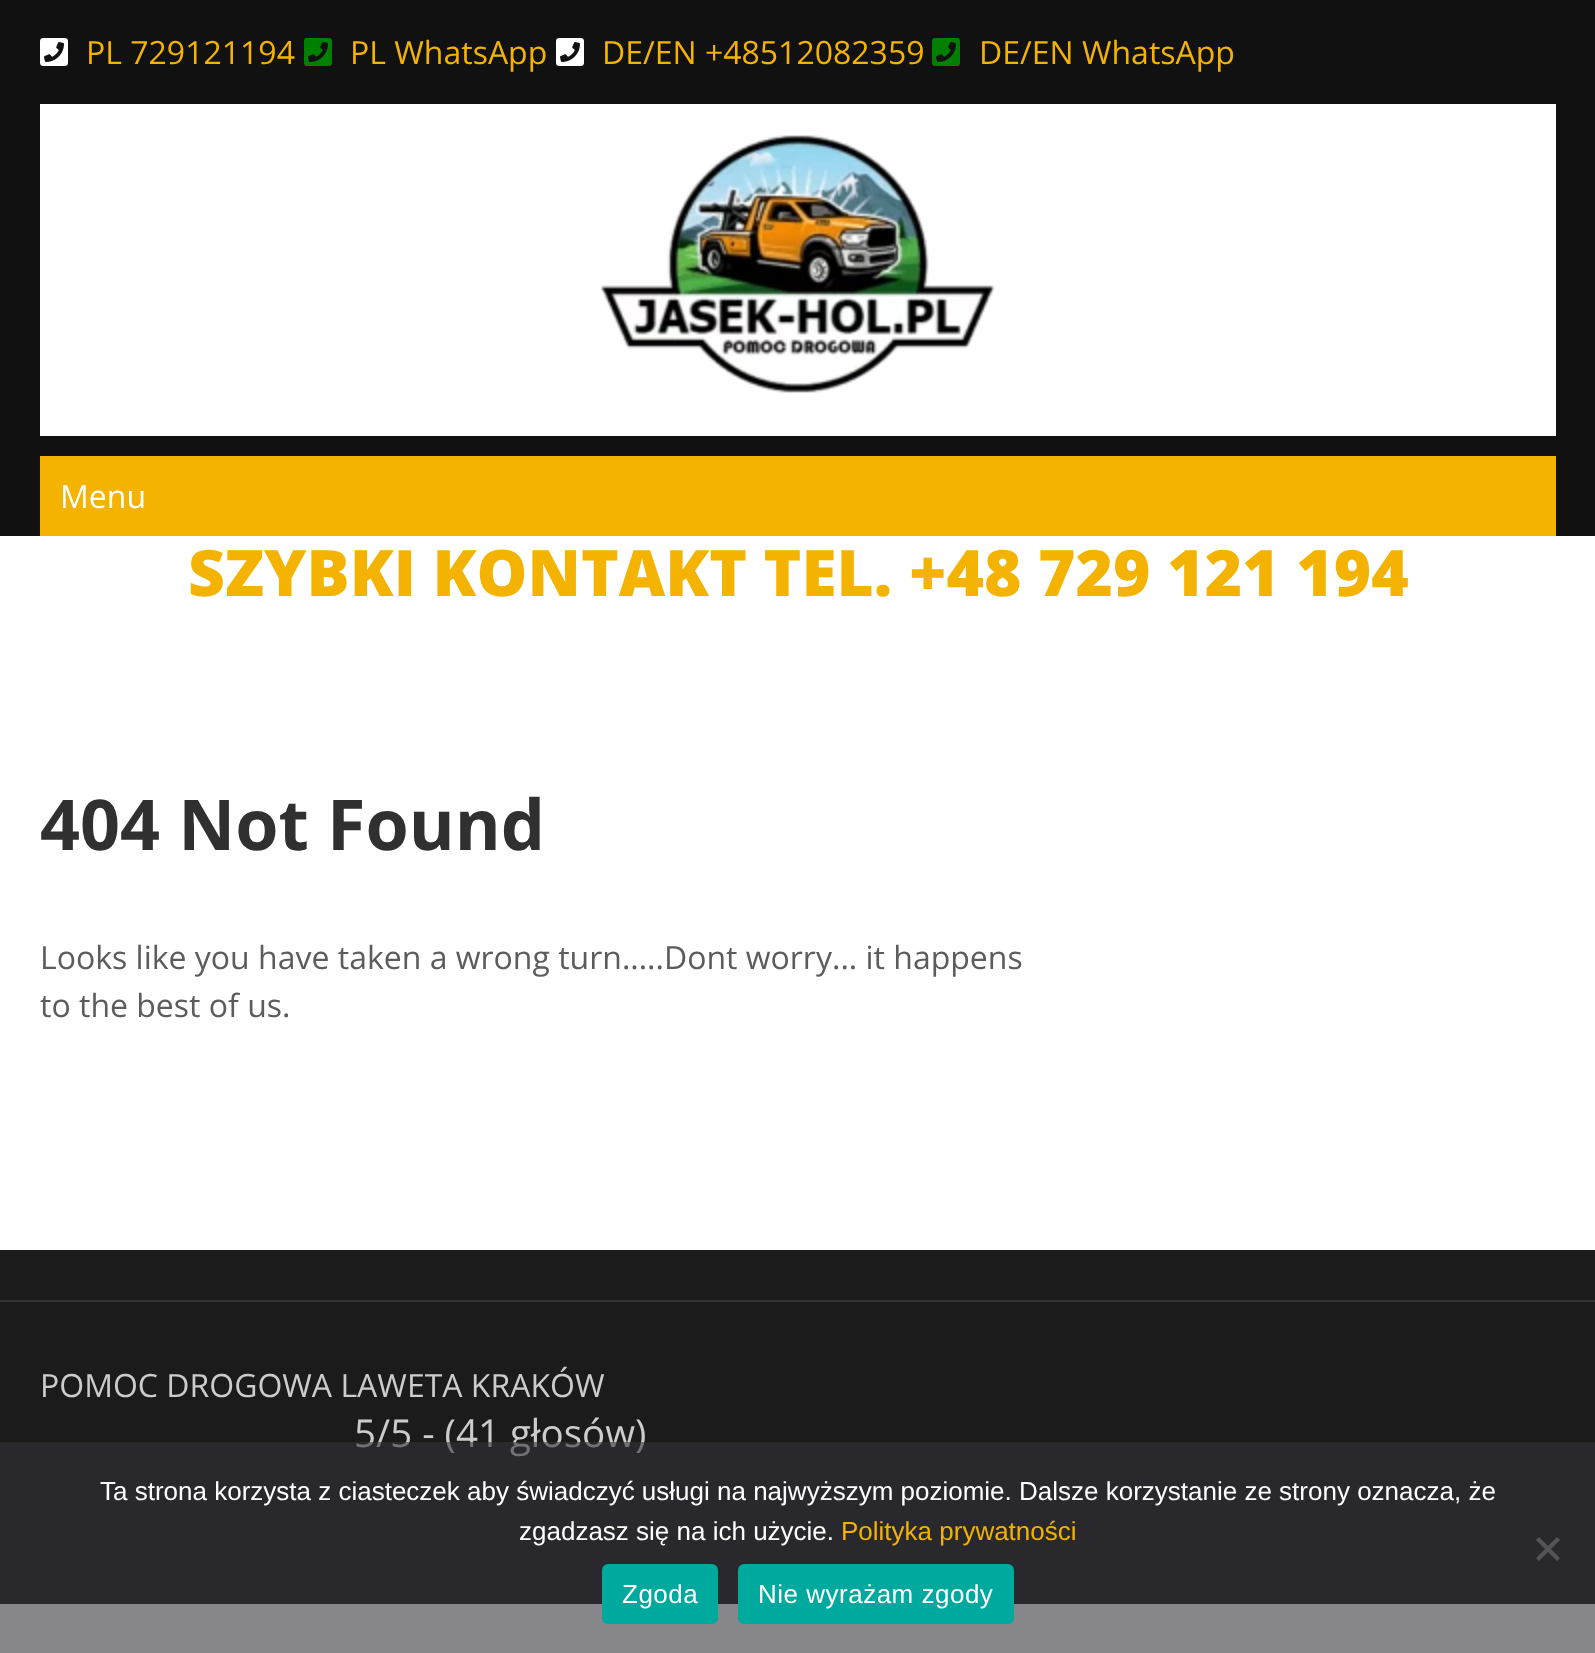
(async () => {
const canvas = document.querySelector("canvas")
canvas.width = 1595
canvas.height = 1653
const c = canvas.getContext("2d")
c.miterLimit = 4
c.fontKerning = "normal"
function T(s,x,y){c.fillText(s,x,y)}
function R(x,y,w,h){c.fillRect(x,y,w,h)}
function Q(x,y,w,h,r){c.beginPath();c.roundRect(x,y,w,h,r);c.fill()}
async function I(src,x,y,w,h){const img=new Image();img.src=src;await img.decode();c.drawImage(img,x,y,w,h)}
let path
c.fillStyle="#fff"
R(0,0,1595,1653)
c.fillStyle="#111"
R(0,0,1595,536)
await I("1.png",40,38,28,28)
c.font="32px Open Sans"
c.fillStyle="#f4b300"
T("PL 729121194",86,64)
await I("2.png",304,38,28,28)
T("PL WhatsApp",350,64)
await I("1.png",556,38,28,28)
T("DE/EN +48512082359",602,64)
await I("2.png",932,38,28,28)
T("DE/EN WhatsApp",979,64)
c.fillStyle="#fff"
R(40,104,1516,332)
await I("3.png",600,135,395,258)
c.fillStyle="#f4b300"
R(40,456,1516,80)
c.fillStyle="#fff"
T("Menu",60,508)
c.font="800 64px Open Sans"
c.fillStyle="#f4b300"
T("SZYBKI KONTAKT TEL. +48 729 121 194",188,596)
c.font="bold 70px Open Sans"
c.fillStyle="#303030"
T("404 Not Found",40,850)
c.font="32px Open Sans"
c.fillStyle="#5c5c5c"
T("Looks like you have taken a wrong turn.....Dont worry... it happens",40,969)
T("to the best of us.",40,1017)
c.fillStyle="#1b1b1b"
R(0,1250,1595,354)
c.fillStyle="#343434"
R(0,1300,1595,2)
c.fillStyle="#ccc"
T("POMOC DROGOWA LAWETA KRAKÓW",40,1397)
c.font="38.5px Open Sans"
T("5/5 - (41 głosów)",354,1447)
c.fillStyle="#32323a96"
R(0,1442,1595,211)
c.font="26px Liberation Sans"
c.fillStyle="#fff"
T("Ta strona korzysta z ciasteczek aby świadczyć usługi na najwyższym poziomie. Dalsze korzystanie ze strony oznacza, że",100,1500)
T("zgadzasz się na ich użycie.",519,1540)
c.fillStyle="#f4b300"
T("Polityka prywatności",841,1540)
c.fillStyle="#545457"
path = new Path2D("M1557 1537l3 3l-21 21l-3-3z")
c.fill(path)
path = new Path2D("M1536 1540l3-3l21 21l-3 3z")
c.fill(path)
c.fillStyle="#00a99d"
Q(602,1564,116,60,6)
c.letterSpacing="0.5px"
c.fillStyle="#fff"
T("Zgoda",622,1603)
c.fillStyle="#00a99d"
Q(738,1564,276,60,6)
c.fillStyle="#fff"
T("Nie wyrażam zgody",758,1603)
})()
